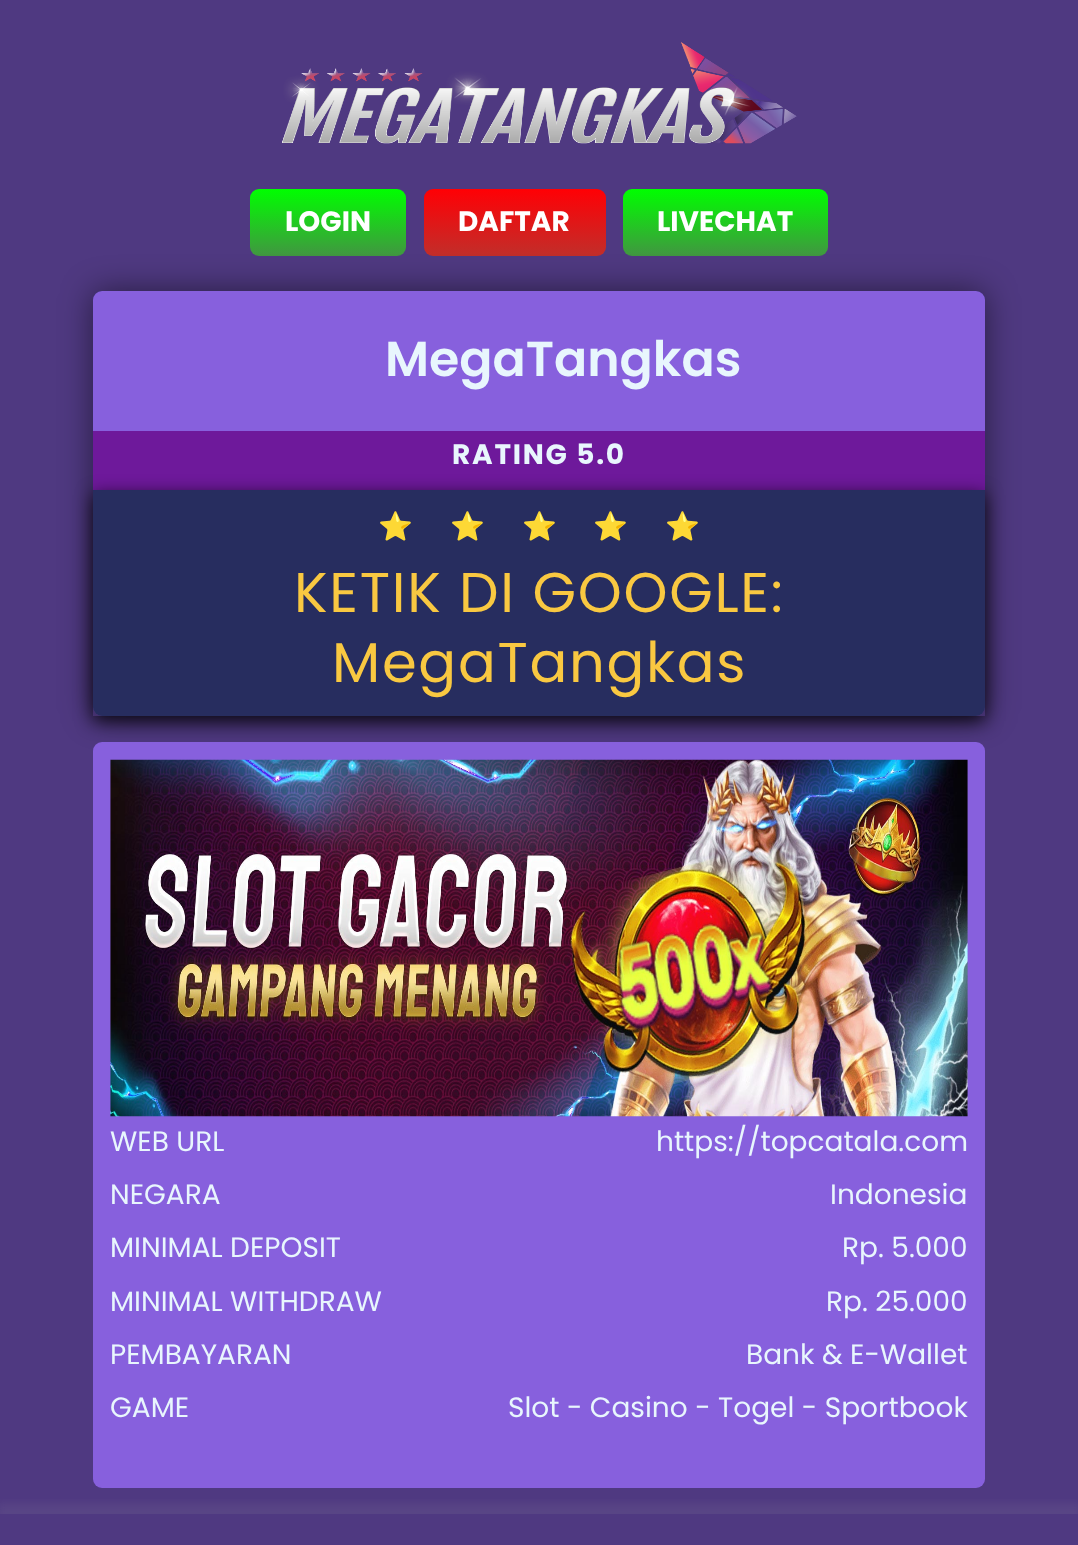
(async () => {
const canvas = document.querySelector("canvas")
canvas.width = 1078
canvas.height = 1545
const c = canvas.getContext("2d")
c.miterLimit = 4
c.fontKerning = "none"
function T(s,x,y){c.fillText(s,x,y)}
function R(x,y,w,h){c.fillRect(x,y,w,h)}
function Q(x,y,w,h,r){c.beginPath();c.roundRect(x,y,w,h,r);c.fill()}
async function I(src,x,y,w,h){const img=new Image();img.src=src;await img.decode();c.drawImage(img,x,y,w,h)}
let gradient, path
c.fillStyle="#4f3981"
R(0,0,1078,1545)
await I("1.png",282,42,515,102)
gradient = c.createLinearGradient(328,189,328,256)
gradient.addColorStop(0,"#0f0")
gradient.addColorStop(1,"#419641")
c.fillStyle = gradient
Q(250,189,156,67,9)
c.font="bold 28px Poppins"
c.fillStyle="#fff"
T("LOGIN",285,231)
gradient = c.createLinearGradient(515,189,515,256)
gradient.addColorStop(0,"#ff0005")
gradient.addColorStop(1,"#c12e2a")
c.fillStyle = gradient
Q(424,189,182,67,9)
c.fillStyle="#fff"
T("DAFTAR",458,231)
gradient = c.createLinearGradient(725,189,725,256)
gradient.addColorStop(0,"#0f0")
gradient.addColorStop(1,"#419641")
c.fillStyle = gradient
Q(623,189,205,67,9)
c.fillStyle="#fff"
T("LIVECHAT",657,231)
c.save()
path = new Path2D("M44 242h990v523h-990zm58 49h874c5 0 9 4 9 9v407c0 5-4 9-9 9h-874c-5 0-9-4-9-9v-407c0-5 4-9 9-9z")
c.clip(path,"evenodd")
c.fillStyle="#00000080"
c.filter="blur(16px)"
c.beginPath()
c.roundRect(93,291,892,425,9)
c.fill()
c.filter="none"
c.restore()
c.fillStyle="#04224285"
Q(93,291,892,425,9)
c.fillStyle="#8760dd"
c.beginPath()
c.roundRect(93,291,892,140,[9,9,0,0])
c.fill()
c.font="600 49px Poppins"
c.fillStyle="#e8f6fd"
T("MegaTangkas",385,376)
c.fillStyle="#6e199b"
R(93,431,892,59)
c.letterSpacing="1.75px"
c.font="bold 28px Poppins"
c.fillStyle="#e8f6fd"
T("RATING 5.0",452,464)
c.save()
path = new Path2D("M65 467h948v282h-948zm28 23h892v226h-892z")
c.clip(path,"evenodd")
c.fillStyle="#000000cc"
c.filter="blur(9px)"
c.beginPath()
c.rect(93,495,892,226)
c.fill()
c.filter="none"
c.restore()
c.letterSpacing="0px"
c.font="28px Noto Color Emoji"
c.fillStyle="#000"
T("⭐",378,536)
T("⭐",450,536)
T("⭐",522,536)
T("⭐",593,536)
T("⭐",665,536)
c.letterSpacing="1.7px"
c.font="56px Poppins"
c.fillStyle="#f9c841"
T("KETIK DI GOOGLE:",294,612)
T("MegaTangkas",332,682)
c.fillStyle="#8760dd"
Q(93,742,892,746,9)
await I("2.png",110,759,858,358)
c.letterSpacing="0px"
c.font="28px Poppins"
c.fillStyle="#e8f6fd"
T("WEB URL",110,1151)
T("https://topcatala.com",656,1151)
T("NEGARA",110,1204)
T("Indonesia",830,1204)
T("MINIMAL DEPOSIT",110,1257)
T("Rp. 5.000",842,1257)
T("MINIMAL WITHDRAW",110,1311)
T("Rp. 25.000",826,1311)
T("PEMBAYARAN",110,1364)
T("Bank & E-Wallet",746,1364)
T("GAME",110,1417)
T("Slot - Casino - Togel - Sportbook",508,1417)
c.save()
c.beginPath()
c.rect(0,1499,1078,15)
c.clip()
c.fillStyle="#b0b0b01a"
c.filter="blur(4.5px)"
c.beginPath()
c.rect(-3,1503,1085,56)
c.fill()
c.filter="none"
c.restore()
})()
